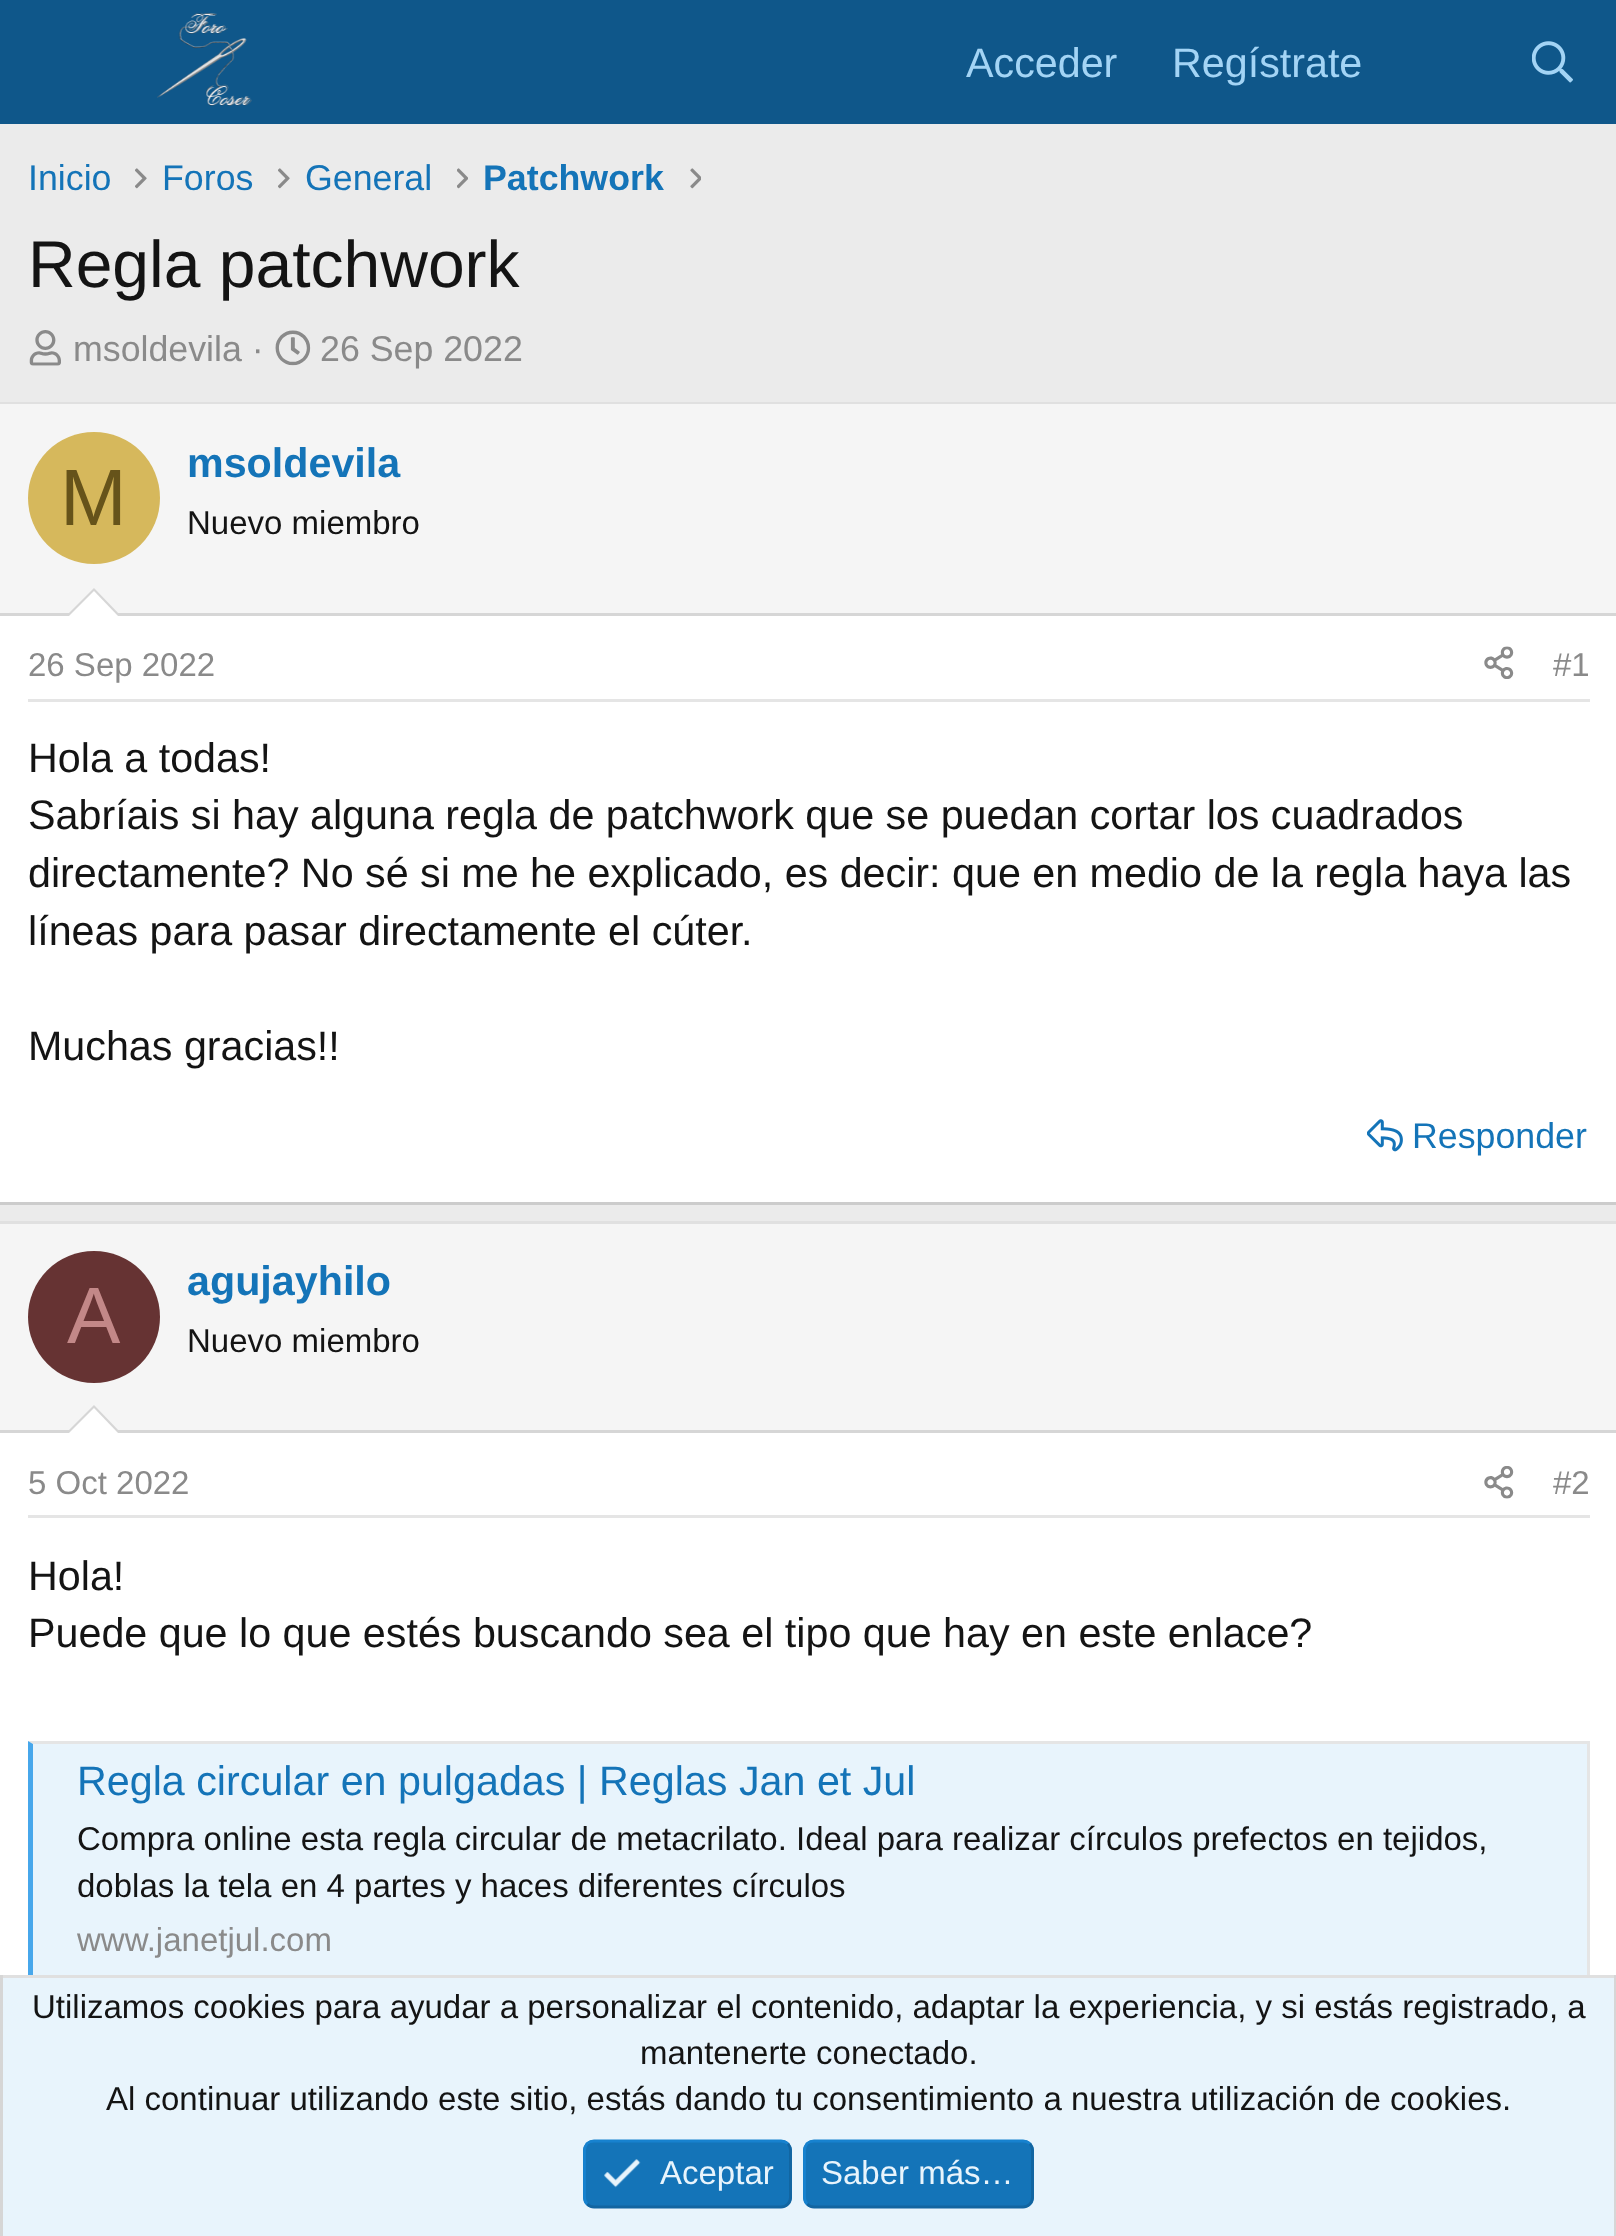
(async () => {
const canvas = document.querySelector("canvas")
canvas.width = 1616
canvas.height = 2236
const c = canvas.getContext("2d")
c.miterLimit = 4
c.fontKerning = "normal"
function T(s,x,y){c.fillText(s,x,y)}
function R(x,y,w,h){c.fillRect(x,y,w,h)}
function Q(x,y,w,h,r){c.beginPath();c.roundRect(x,y,w,h,r);c.fill()}
async function I(src,x,y,w,h){const img=new Image();img.src=src;await img.decode();c.drawImage(img,x,y,w,h)}
let path
c.fillStyle="#ebebeb"
R(0,0,1616,2236)
c.fillStyle="#0f578a"
R(0,0,1616,124)
await I("1.png",157,13,95,93)
c.font="41.25px Liberation Sans"
c.fillStyle="#a3d4f5"
T("Acceder",966,77)
T("Regístrate",1172,77)
await I("2.png",1532,41,41,42)
c.font="35.75px Liberation Sans"
c.fillStyle="#1474b8"
T("Inicio",28,190)
await I("3.png",135,168,12,21)
T("Foros",162,190)
await I("3.png",278,168,12,21)
T("General",305,190)
await I("4.png",457,168,11,21)
c.font="bold 35.75px Liberation Sans"
T("Patchwork",483,190)
await I("5.png",690,168,11,21)
c.font="66px Liberation Sans"
c.fillStyle="#141414"
T("Regla patchwork",28,287)
await I("6.png",29,330,32,36)
c.font="35.75px Liberation Sans"
c.fillStyle="#8a8a8a"
T("msoldevila ·",73,361)
await I("7.png",275,330,36,36)
T("26 Sep 2022",320,361)
c.fillStyle="#fff"
R(0,616,1616,586)
c.fillStyle="#e0e0e0"
R(0,402,1616,2)
c.fillStyle="#ccc"
R(0,1202,1616,3)
c.fillStyle="#f5f5f5"
R(0,404,1616,209)
c.fillStyle="#d6d6d6"
R(0,613,1616,3)
c.fillStyle="#d6b85c"
c.beginPath()
c.arc(94,498,66,0,7)
c.fill()
c.font="80px Liberation Sans"
c.fillStyle="#66531a"
T("M",60,525)
c.font="bold 41.25px Liberation Sans"
c.fillStyle="#1474b8"
T("msoldevila",187,477)
c.font="33px Liberation Sans"
c.fillStyle="#141414"
T("Nuevo miembro",187,534)
c.fillStyle="#d6d6d6"
path = new Path2D("M121 616h-55l28-28z")
c.fill(path)
c.fillStyle="#fff"
path = new Path2D("M118 616h-49l25-25z")
c.fill(path)
c.fillStyle="#e5e5e5"
R(28,699,1562,3)
c.fillStyle="#8a8a8a"
T("26 Sep 2022",28,676)
await I("8.png",1484,646,30,33)
T("#1",1553,676)
c.font="41.25px Liberation Sans"
c.fillStyle="#141414"
T("Hola a todas!",28,772)
T("Sabríais si hay alguna regla de patchwork que se puedan cortar los cuadrados",28,829)
T("directamente? No sé si me he explicado, es decir: que en medio de la regla haya las",28,887)
T("líneas para pasar directamente el cúter.",28,945)
T("Muchas gracias!!",28,1060)
await I("9.png",1367,1119,36,33)
c.font="35.75px Liberation Sans"
c.fillStyle="#1474b8"
T("Responder",1412,1148)
c.fillStyle="#fff"
R(0,1433,1616,542)
c.fillStyle="#e0e0e0"
R(0,1221,1616,3)
c.fillStyle="#f5f5f5"
R(0,1224,1616,206)
c.fillStyle="#d6d6d6"
R(0,1430,1616,3)
c.fillStyle="#633"
c.beginPath()
c.arc(94,1317,66,0,7)
c.fill()
c.font="80px Liberation Sans"
c.fillStyle="#c38888"
T("A",67,1343)
c.font="bold 41.25px Liberation Sans"
c.fillStyle="#1474b8"
T("agujayhilo",187,1295)
c.font="33px Liberation Sans"
c.fillStyle="#141414"
T("Nuevo miembro",187,1352)
c.fillStyle="#d6d6d6"
path = new Path2D("M121 1433h-55l28-28z")
c.fill(path)
c.fillStyle="#fff"
path = new Path2D("M118 1433h-49l25-25z")
c.fill(path)
c.fillStyle="#e5e5e5"
R(28,1515,1562,3)
c.fillStyle="#8a8a8a"
T("5 Oct 2022",28,1494)
await I("10.png",1484,1466,30,33)
T("#2",1553,1494)
c.font="41.25px Liberation Sans"
c.fillStyle="#141414"
T("Hola!",28,1590)
T("Puede que lo que estés buscando sea el tipo que hay en este enlace?",28,1647)
c.fillStyle="#e8f4fc"
R(33,1744,1554,231)
c.fillStyle="#e5e5e5"
path = new Path2D("M28 1741h1562l-3 3h-1554z")
c.fill(path)
R(1587,1741,3,242)
c.fillStyle="#47a7eb"
path = new Path2D("M28 1983v-242l5 3v236z")
c.fill(path)
c.fillStyle="#1474b8"
T("Regla circular en pulgadas | Reglas Jan et Jul",77,1795)
c.font="33px Liberation Sans"
c.fillStyle="#141414"
T("Compra online esta regla circular de metacrilato. Ideal para realizar círculos prefectos en tejidos,",77,1850)
T("doblas la tela en 4 partes y haces diferentes círculos",77,1897)
c.fillStyle="#8a8a8a"
T("www.janetjul.com",77,1951)
c.fillStyle="#e8f4fc"
R(3,1978,1611,258)
c.fillStyle="#e0e0e0"
R(0,1975,1616,3)
c.fillStyle="#d6d6d6"
R(1614,1975,2,261)
R(0,1975,3,261)
c.fillStyle="#141414"
T("Utilizamos cookies para ayudar a personalizar el contenido, adaptar la experiencia, y si estás registrado, a",32,2018)
T("mantenerte conectado.",640,2064)
T("Al continuar utilizando este sitio, estás dando tu consentimiento a nuestra utilización de cookies.",106,2110)
c.fillStyle="#1474b8"
Q(583,2140,209,68,11)
path = new Path2D("M788 2143.5c1.5 2 2.5 4.5 2.5 7v46.5c0 3-1 5.5-2.5 7c-2 2-4.5 3-7 3h-187c-2.5 0-5-1-7-3")
c.strokeStyle="#1265a1"
c.lineWidth=2.8
c.stroke(path)
path = new Path2D("M587 2204c-1.5-1.5-2.5-4-2.5-7v-46.5c0-2.5 1-5 2.5-7c2-1.5 4.5-2.5 7-2.5h187c2.5 0 5 1 7 2.5")
c.strokeStyle="#1782cf"
c.stroke(path)
await I("11.png",604,2159,37,29)
c.fillStyle="#e8f4fc"
T("Aceptar",660,2184)
c.fillStyle="#1474b8"
Q(803,2140,231,68,11)
path = new Path2D("M1030 2143.5c1.5 2 2.5 4.5 2.5 7v46.5c0 3-1 5.5-2.5 7c-2 2-4.5 3-7 3h-209c-2.5 0-5-1-7-3")
c.strokeStyle="#1265a1"
c.stroke(path)
path = new Path2D("M807 2204c-1.5-1.5-2.5-4-2.5-7v-46.5c0-2.5 1-5 2.5-7c2-1.5 4.5-2.5 7-2.5h209c2.5 0 5 1 7 2.5")
c.strokeStyle="#1782cf"
c.stroke(path)
c.fillStyle="#e8f4fc"
T("Saber más…",821,2184)
})()
